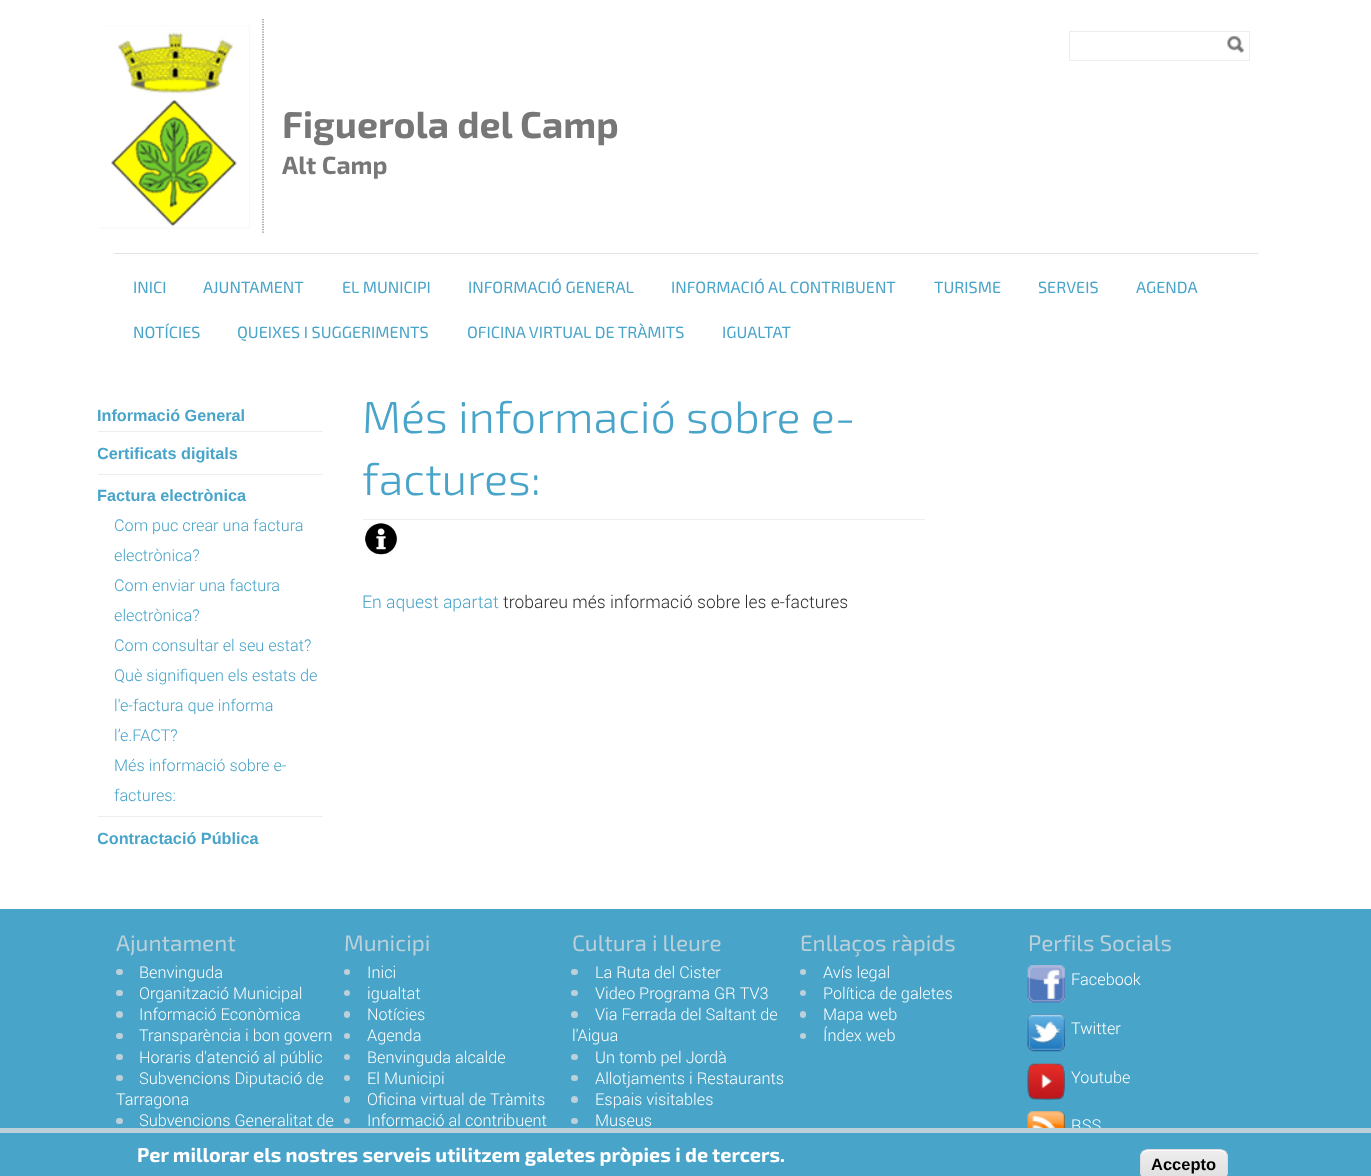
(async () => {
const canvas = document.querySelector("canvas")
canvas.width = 1371
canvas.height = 1176
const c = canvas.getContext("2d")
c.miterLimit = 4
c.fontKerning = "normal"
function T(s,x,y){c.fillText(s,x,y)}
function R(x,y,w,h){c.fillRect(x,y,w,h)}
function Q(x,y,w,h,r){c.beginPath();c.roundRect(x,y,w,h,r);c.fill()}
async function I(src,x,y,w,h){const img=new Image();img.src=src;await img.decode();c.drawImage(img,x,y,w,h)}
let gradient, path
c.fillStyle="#fff"
R(0,0,1371,1176)
c.strokeStyle="#ededed"
c.strokeRect(1069.5,31.5,180,29)
await I("1.png",1227,36,17,17)
await I("2.png",99,25,151,204)
path = new Path2D("M263 19v215")
c.strokeStyle="#777"
c.lineWidth=1.2
c.setLineDash([1.25,1.25])
c.stroke(path)
c.font="bold 37.5px 'Exo 2'"
c.fillStyle="#777"
T("Figuerola del Camp",282,138)
c.font="bold 25px 'Exo 2'"
T("Alt Camp",282,174)
c.fillStyle="#e4e4e4"
R(114,253,1144,1)
c.font="16.25px 'Exo 2'"
c.fillStyle="#48a4c9"
T("INICI",133,293)
T("AJUNTAMENT",203,293)
T("EL MUNICIPI",342,293)
T("INFORMACIÓ GENERAL",468,293)
T("INFORMACIÓ AL CONTRIBUENT",671,293)
T("TURISME",934,293)
T("SERVEIS",1038,293)
T("AGENDA",1136,293)
T("NOTÍCIES",133,338)
T("QUEIXES I SUGGERIMENTS",237,338)
T("OFICINA VIRTUAL DE TRÀMITS",467,338)
T("IGUALTAT",722,338)
c.font="bold 16.25px Liberation Sans"
T("Informació General",97,421)
c.fillStyle="#eee"
R(98,431,225,1)
c.save()
c.beginPath()
c.rect(98,363,1177,546)
c.clip()
c.fillStyle="#48a4c9"
T("Certificats digitals",97,459)
c.restore()
R(98,474,225,1)
c.fillStyle="#48a4c9"
T("Factura electrònica",97,501)
c.font="300 16.25px 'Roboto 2'"
T("Com puc crear una factura",114,531)
T("electrònica?",114,561)
T("Com enviar una factura",114,591)
T("electrònica?",114,621)
T("Com consultar el seu estat?",114,651)
T("Què signifiquen els estats de",114,681)
T("l'e-factura que informa",114,711)
T("l’e.FACT?",114,741)
T("Més informació sobre e-",114,771)
T("factures:",114,801)
c.fillStyle="#eee"
R(98,816,225,1)
c.save()
c.beginPath()
c.rect(98,363,1177,546)
c.clip()
c.font="bold 16.25px Liberation Sans"
c.fillStyle="#48a4c9"
T("Contractació Pública",97,844)
c.restore()
R(363,519,562,1)
c.font="300 45px 'Exo 2'"
c.fillStyle="#48a4c9"
T("Més informació sobre e-",362,433)
T("factures:",362,495)
await I("3.png",365,523,33,32)
c.font="300 17.5px Roboto"
T("En aquest apartat",362,608)
c.fillStyle="#2d2d2d"
T("trobareu més informació sobre les e-factures",503,608)
c.fillStyle="#48a4c9"
R(0,909,1371,219)
c.font="22.5px 'Exo 2'"
c.fillStyle="#bbd0d9"
T("Ajuntament",116,951)
Q(116,969,7,6,3)
c.font="300 16.25px Roboto"
c.fillStyle="#fff"
T("Benvinguda",139,978)
c.fillStyle="#bbd0d9"
Q(116,990,7,6,3)
c.fillStyle="#fff"
T("Organització Municipal",139,999)
c.fillStyle="#bbd0d9"
c.beginPath()
c.arc(119.5,1014.5,3.5,0,7)
c.fill()
c.fillStyle="#fff"
T("Informació Econòmica",139,1020)
c.fillStyle="#bbd0d9"
Q(116,1033,7,6,3)
c.fillStyle="#fff"
T("Transparència i bon govern",139,1041)
c.fillStyle="#bbd0d9"
Q(116,1054,7,6,3)
c.fillStyle="#fff"
T("Horaris d'atenció al públic",139,1063)
c.fillStyle="#bbd0d9"
Q(116,1075,7,6,3)
c.fillStyle="#fff"
T("Subvencions Diputació de",139,1084)
T("Tarragona",116,1105)
c.fillStyle="#bbd0d9"
Q(116,1118,7,6,3)
c.fillStyle="#fff"
T("Subvencions Generalitat de",139,1126)
c.font="22.5px 'Exo 2'"
c.fillStyle="#bbd0d9"
T("Municipi",344,951)
c.beginPath()
c.arc(347,972,3,0,7)
c.fill()
c.font="300 16.25px Roboto"
c.fillStyle="#fff"
T("Inici",367,978)
c.fillStyle="#bbd0d9"
c.beginPath()
c.arc(347,993,3,0,7)
c.fill()
c.fillStyle="#fff"
T("igualtat",367,999)
c.fillStyle="#bbd0d9"
Q(344,1011,6,7,3)
c.fillStyle="#fff"
T("Notícies",367,1020)
c.fillStyle="#bbd0d9"
c.beginPath()
c.arc(347,1036,3,0,7)
c.fill()
c.fillStyle="#fff"
T("Agenda",367,1041)
c.fillStyle="#bbd0d9"
c.beginPath()
c.arc(347,1057,3,0,7)
c.fill()
c.fillStyle="#fff"
T("Benvinguda alcalde",367,1063)
c.fillStyle="#bbd0d9"
c.beginPath()
c.arc(347,1078,3,0,7)
c.fill()
c.fillStyle="#fff"
T("El Municipi",367,1084)
c.fillStyle="#bbd0d9"
Q(344,1096,6,7,3)
c.fillStyle="#fff"
T("Oficina virtual de Tràmits",367,1105)
c.fillStyle="#bbd0d9"
c.beginPath()
c.arc(347,1121,3,0,7)
c.fill()
c.fillStyle="#fff"
T("Informació al contribuent",367,1126)
c.font="22.5px 'Exo 2'"
c.fillStyle="#bbd0d9"
T("Cultura i lleure",572,951)
Q(571,969,7,6,3)
c.font="300 16.25px Roboto"
c.fillStyle="#fff"
T("La Ruta del Cister",595,978)
c.fillStyle="#bbd0d9"
Q(571,990,7,6,3)
c.fillStyle="#fff"
T("Video Programa GR TV3",595,999)
c.fillStyle="#bbd0d9"
c.beginPath()
c.arc(574.5,1014.5,3.5,0,7)
c.fill()
c.fillStyle="#fff"
T("Via Ferrada del Saltant de",595,1020)
T("l'Aigua",572,1041)
c.fillStyle="#bbd0d9"
Q(571,1054,7,6,3)
c.fillStyle="#fff"
T("Un tomb pel Jordà",595,1063)
c.fillStyle="#bbd0d9"
Q(571,1075,7,6,3)
c.fillStyle="#fff"
T("Allotjaments i Restaurants",595,1084)
c.fillStyle="#bbd0d9"
c.beginPath()
c.arc(574.5,1099.5,3.5,0,7)
c.fill()
c.fillStyle="#fff"
T("Espais visitables",595,1105)
c.fillStyle="#bbd0d9"
Q(571,1118,7,6,3)
c.fillStyle="#fff"
T("Museus",595,1126)
c.font="22.5px 'Exo 2'"
c.fillStyle="#bbd0d9"
T("Enllaços ràpids",800,951)
c.beginPath()
c.arc(803,972,3,0,7)
c.fill()
c.font="300 16.25px Roboto"
c.fillStyle="#fff"
T("Avís legal",823,978)
c.fillStyle="#bbd0d9"
c.beginPath()
c.arc(803,993,3,0,7)
c.fill()
c.fillStyle="#fff"
T("Política de galetes",823,999)
c.fillStyle="#bbd0d9"
Q(800,1011,6,7,3)
c.fillStyle="#fff"
T("Mapa web",823,1020)
c.fillStyle="#bbd0d9"
c.beginPath()
c.arc(803,1036,3,0,7)
c.fill()
c.fillStyle="#fff"
T("Índex web",823,1041)
c.font="22.5px 'Exo 2'"
c.fillStyle="#bbd0d9"
T("Perfils Socials",1028,951)
await I("4.png",1027,965,38,38)
c.font="300 16.25px Roboto"
c.fillStyle="#fff"
T("Facebook",1071,985)
await I("5.png",1027,1013,38,39)
T("Twitter",1071,1034)
await I("6.png",1027,1063,38,37)
T("Youtube",1071,1083)
await I("7.png",1027,1111,38,17)
T("RSS",1071,1131)
c.fillStyle="#48a4c9"
R(0,1133,1371,43)
c.fillStyle="#bbd0d9"
R(0,1128,1371,5)
c.font="bold 20px 'Exo 2'"
c.fillStyle="#fff"
T("Per millorar els nostres serveis utilitzem galetes pròpies i de tercers.",137,1162)
c.save()
c.beginPath()
c.roundRect(1140,1149,88,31,8)
c.clip()
gradient = c.createLinearGradient(1184,1150,1184,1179)
gradient.addColorStop(.05,"#ededed")
gradient.addColorStop(1,"#dfdfdf")
c.fillStyle = gradient
R(1140,1150,88,26)
c.restore()
path = new Path2D("M1148 1151h72c3 0 6 3 6 7c0-11-9-8-18-8h-49c-9 0-18-3-18 8c0-4 3-7 7-7z")
c.fill(path)
c.beginPath()
c.roundRect(1140.5,1149.5,87,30,7.5)
c.strokeStyle="#dcdcdc"
c.lineWidth=1
c.setLineDash([])
c.stroke()
c.font="bold 16.5px Liberation Sans"
c.fillStyle="#000"
T("Accepto",1151,1170)
})()
